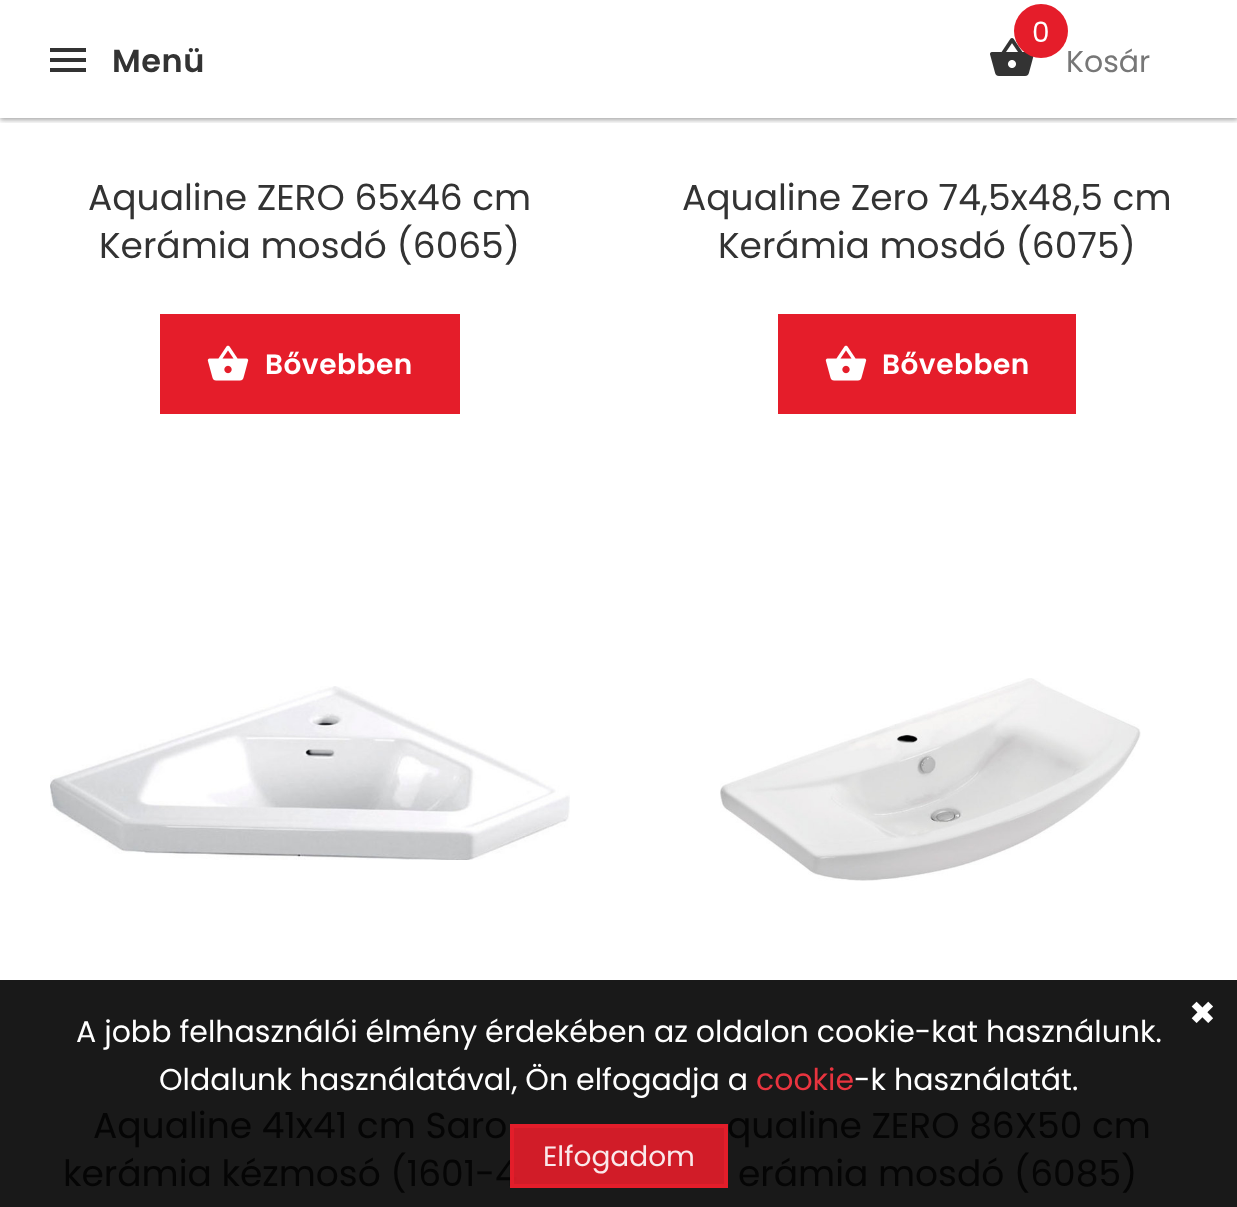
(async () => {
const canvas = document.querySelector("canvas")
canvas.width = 1237
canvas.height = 1207
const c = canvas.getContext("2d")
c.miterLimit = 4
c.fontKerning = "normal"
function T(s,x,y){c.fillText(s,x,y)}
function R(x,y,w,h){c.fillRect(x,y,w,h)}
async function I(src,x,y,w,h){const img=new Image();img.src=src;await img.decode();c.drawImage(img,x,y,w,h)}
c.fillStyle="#fff"
R(0,0,1237,1207)
c.fillStyle="#191919"
R(0,980,1237,227)
c.save()
c.beginPath()
c.rect(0,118,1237,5)
c.clip()
c.fillStyle="#0000003d"
c.filter="blur(2px)"
c.beginPath()
c.rect(0,2,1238,118)
c.fill()
c.filter="none"
c.fillStyle="#0000001f"
c.filter="blur(3px)"
c.beginPath()
c.rect(0,2,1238,118)
c.fill()
c.filter="none"
c.restore()
c.fillStyle="#333"
R(50,48,36,4)
c.letterSpacing="0.5px"
c.font="600 32px Poppins"
T("Menü",112,72)
R(50,58,36,4)
R(50,68,36,4)
await I("1.png",990,38,44,38)
c.letterSpacing="0px"
c.font="30px Poppins"
c.fillStyle="#777"
T("Kosár",1066,72)
c.fillStyle="#e51d2a"
c.beginPath()
c.arc(1041,31,27,0,7)
c.fill()
c.font="28px Poppins"
c.fillStyle="#fff"
T("0",1032,42)
c.font="36px Poppins"
c.fillStyle="#333"
T("Aqualine ZERO 65x46 cm",88,210)
T("Kerámia mosdó (6065)",99,258)
c.fillStyle="#e51d2a"
R(160,314,300,100)
await I("2.png",207,345,42,36)
c.letterSpacing="0.5px"
c.font="600 28px Poppins"
c.fillStyle="#fff"
T("Bővebben",265,374)
c.letterSpacing="0px"
c.font="36px Poppins"
c.fillStyle="#333"
T("Aqualine Zero 74,5x48,5 cm",682,210)
T("Kerámia mosdó (6075)",718,258)
c.fillStyle="#e51d2a"
R(778,314,298,100)
await I("2.png",825,345,42,36)
c.letterSpacing="0.5px"
c.font="600 28px Poppins"
c.fillStyle="#fff"
T("Bővebben",882,374)
await I("3.png",50,686,520,174)
c.letterSpacing="0px"
c.font="36px Poppins"
c.fillStyle="#050505"
T("Aqualine 41x41 cm Saro",93,1138)
T("kerámia kézmosó (1601-4",63,1186)
await I("4.png",720,678,421,203)
T("qualine ZERO 86X50 cm",727,1138)
T("erámia mosdó (6085)",738,1186)
c.font="32px DejaVu Sans"
c.fillStyle="#fff"
T("✖",1189,1024)
c.font="30px Poppins"
T("A jobb felhasználói élmény érdekében az oldalon cookie-kat használunk.",76,1042)
T("Oldalunk használatával, Ön elfogadja a",159,1090)
c.fillStyle="#e8343f"
T("cookie",756,1090)
c.fillStyle="#fff"
T("-k használatát.",854,1090)
c.fillStyle="#e51d2ae6"
c.beginPath()
c.rect(512,1126,214,60)
c.fill()
c.strokeStyle="#e31d2a"
c.lineWidth=4
c.stroke()
c.font="28px Poppins"
c.fillStyle="#fae8ea"
T("Elfogadom",543,1166)
})()
